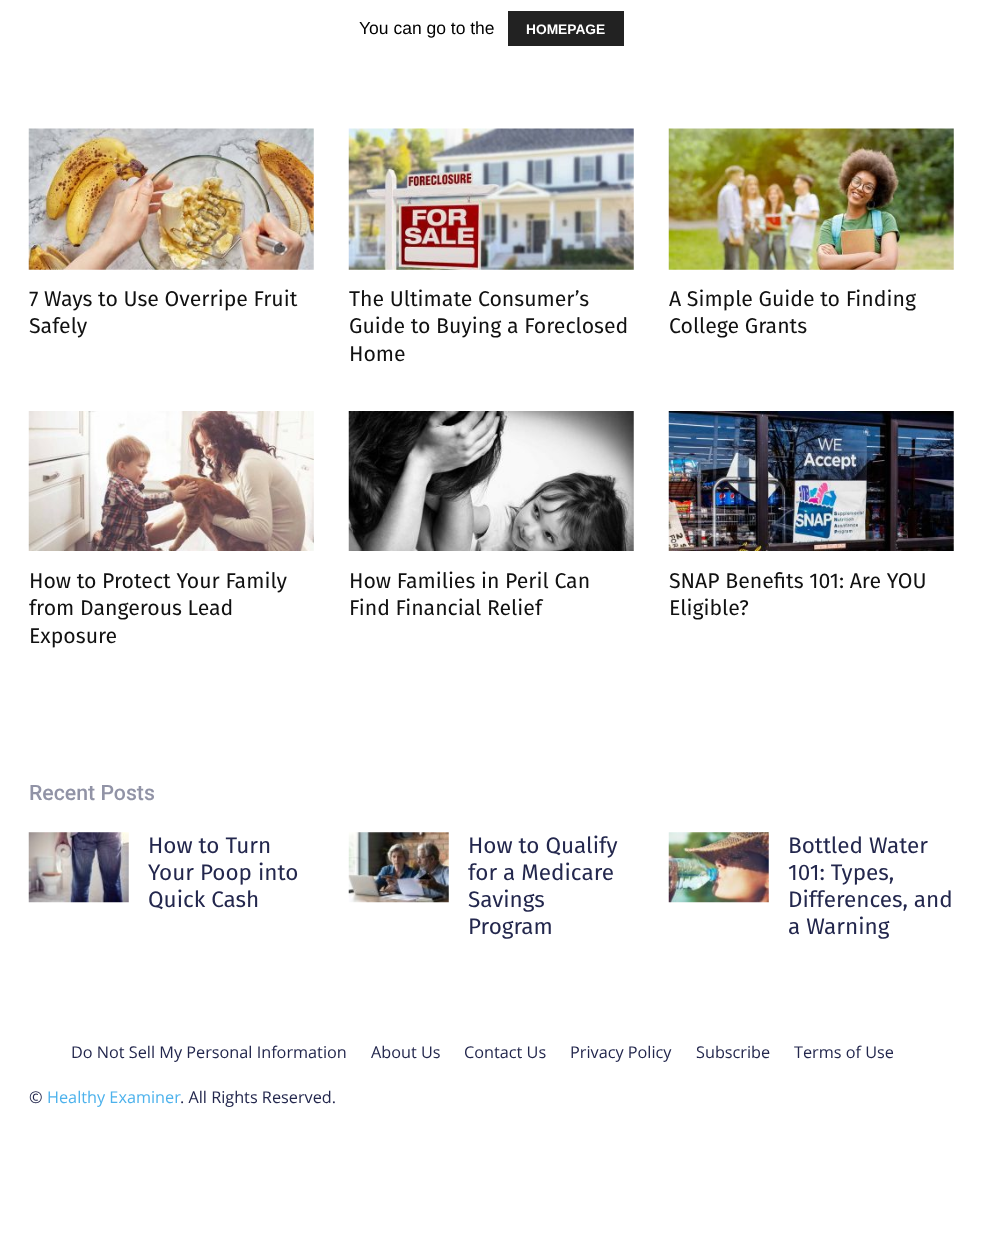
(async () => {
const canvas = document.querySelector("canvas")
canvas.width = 982
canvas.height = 1250
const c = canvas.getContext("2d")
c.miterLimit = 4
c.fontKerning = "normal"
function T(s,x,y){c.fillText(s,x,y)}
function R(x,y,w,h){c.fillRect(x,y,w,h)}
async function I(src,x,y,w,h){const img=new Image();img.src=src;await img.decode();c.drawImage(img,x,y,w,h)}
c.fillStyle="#fff"
R(0,0,982,1250)
c.font="17.5px Liberation Sans"
c.fillStyle="#000"
T("You can go to the",359,34)
c.fillStyle="#222"
R(508,11,116,35)
c.font="bold 13.75px Liberation Sans"
c.fillStyle="#fff"
T("HOMEPAGE",526,34)
await I("1.png",28,128,286,142)
c.font="21.25px Fira Sans"
c.fillStyle="#111"
T("7 Ways to Use Overripe Fruit",29,306)
T("Safely",29,333)
await I("2.png",348,128,286,142)
T("The Ultimate Consumer’s",349,306)
T("Guide to Buying a Foreclosed",349,333)
T("Home",349,361)
await I("3.png",668,128,286,142)
T("A Simple Guide to Finding",669,306)
T("College Grants",669,333)
await I("4.png",28,411,286,140)
T("How to Protect Your Family",29,588)
T("from Dangerous Lead",29,615)
T("Exposure",29,643)
await I("5.png",348,411,286,140)
T("How Families in Peril Can",349,588)
T("Find Financial Relief",349,615)
await I("6.png",668,411,286,140)
T("SNAP Benefits 101: Are YOU",669,588)
T("Eligible?",669,615)
c.font="500 21.25px Roboto"
c.fillStyle="#9193a6"
T("Recent Posts",29,800)
await I("7.png",28,832,101,71)
c.font="22.5px Fira Sans"
c.fillStyle="#23274d"
T("How to Turn",148,853)
T("Your Poop into",148,880)
T("Quick Cash",148,907)
await I("8.png",348,832,101,71)
T("How to Qualify",468,853)
T("for a Medicare",468,880)
T("Savings",468,907)
T("Program",468,934)
await I("9.png",668,832,101,71)
T("Bottled Water",788,853)
T("101: Types,",788,880)
T("Differences, and",788,907)
T("a Warning",788,934)
c.font="16.25px Open Sans"
T("Do Not Sell My Personal Information",71,1058)
T("About Us",371,1058)
T("Contact Us",464,1058)
T("Privacy Policy",570,1058)
T("Subscribe",696,1058)
T("Terms of Use",794,1058)
T("©",29,1103)
c.fillStyle="#4db2ec"
T("Healthy Examiner",47,1103)
c.fillStyle="#23274d"
T(". All Rights Reserved.",180,1103)
})()
